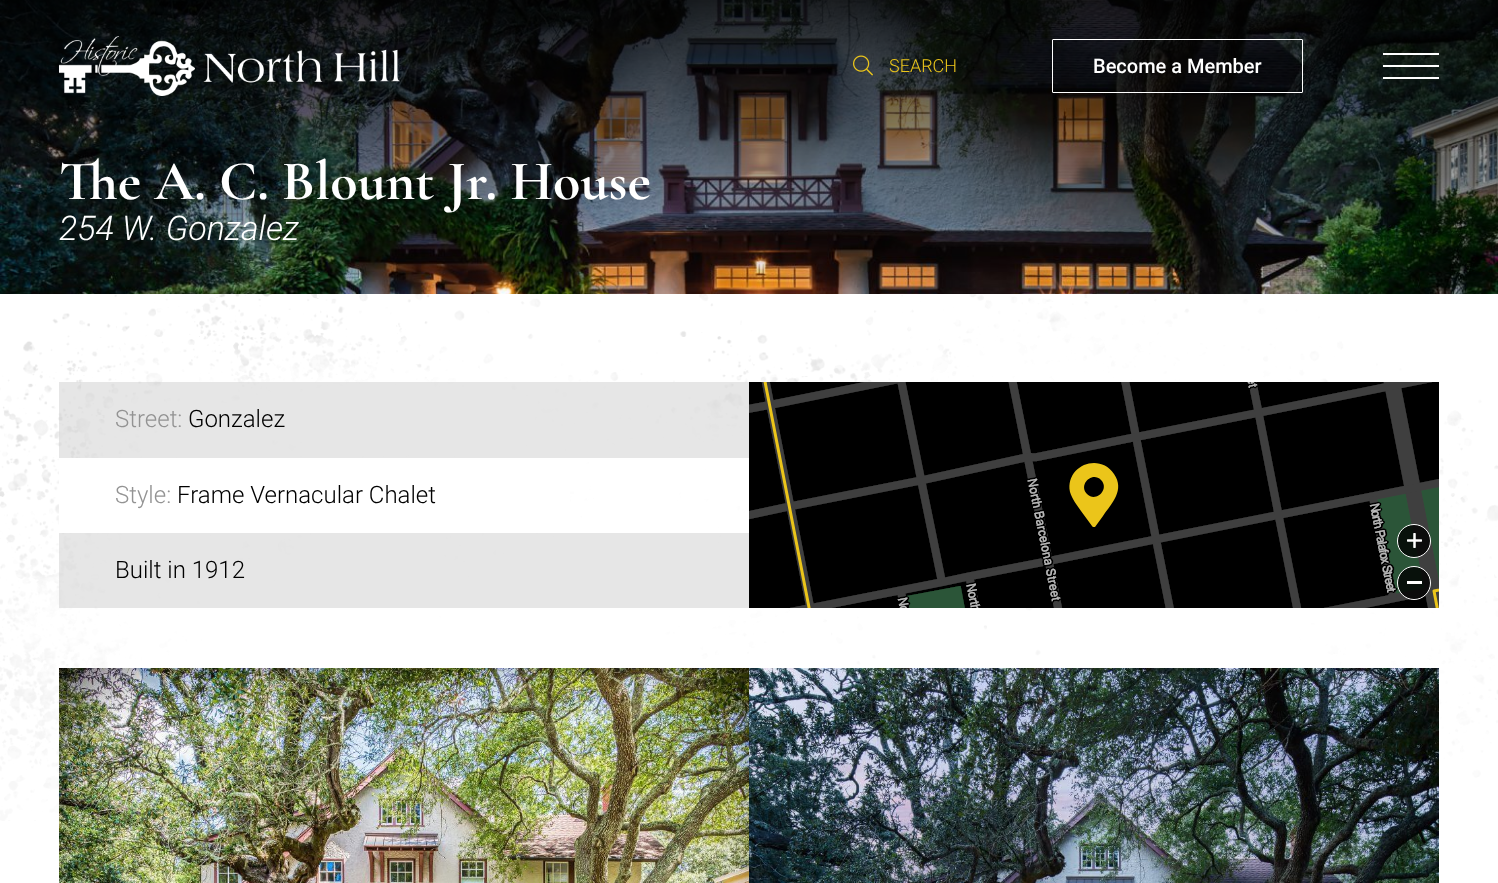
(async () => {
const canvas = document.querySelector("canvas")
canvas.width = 1498
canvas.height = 883
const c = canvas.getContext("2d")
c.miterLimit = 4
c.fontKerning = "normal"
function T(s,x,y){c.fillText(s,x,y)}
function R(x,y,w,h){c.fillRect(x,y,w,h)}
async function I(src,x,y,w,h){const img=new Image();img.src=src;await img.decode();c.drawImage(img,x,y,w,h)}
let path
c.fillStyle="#fff"
R(0,0,1498,883)
await I("3.png",0,0,1498,294)
await I("1.png",59,36,341,60)
await I("2.png",853,55,20,21)
c.font="300 18px Roboto"
c.fillStyle="#ebc51a"
T("SEARCH",889,72)
c.beginPath()
c.roundRect(1052.5,39.5,250,53,.5)
c.strokeStyle="#fff"
c.stroke()
c.font="500 20px Roboto"
c.fillStyle="#fff"
T("Become a Member",1093,73)
R(1383,53,56,2)
R(1383,65,56,2)
R(1383,77,56,2)
c.font="bold 56px Cormorant Garamond"
T("The A. C. Blount Jr. House",59,199)
c.font="italic 300 34px Roboto"
T("254 W. Gonzalez",59,240)
await I("4.png",0,294,1498,527)
c.fillStyle="#cecece80"
R(59,382,690,76)
c.font="300 24px Roboto"
c.fillStyle="#939393"
T("Street:",115,427)
c.fillStyle="#000"
T("Gonzalez",188,427)
c.fillStyle="#fff"
R(59,458,511,75)
c.fillStyle="#939393"
T("Style:",115,503)
c.fillStyle="#000"
T("Frame Vernacular Chalet",177,503)
c.fillStyle="#cecece80"
R(59,533,690,75)
c.fillStyle="#000"
T("Built in 1912",115,578)
R(749,382,690,17)
await I("5.png",761,382,148,17)
await I("6.png",1008,382,125,17)
await I("7.png",1247,382,185,17)
await I("8.png",749,399,178,209)
await I("9.png",927,399,256,209)
await I("10.png",1183,399,256,209)
c.save()
c.beginPath()
c.rect(749,382,690,226)
c.clip()
path = new Path2D("M1442 633l-8-42l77-16v-114l-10-47l-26 4l-14-62h-701l54 277z")
c.strokeStyle="#ebc51a"
c.lineWidth=3
c.lineCap="round"
c.lineJoin="round"
c.stroke(path)
c.restore()
c.fillStyle="#ebc51a"
path = new Path2D("M1092 526l-11-15c-4-6-9-12-11-19c-5-26 29-40 44-18c11 16-2 29-11 42l-8 11c-1 0-3 0-3-1zm-5-32c9 9 23-5 14-14c-9-9-23 5-14 14z")
c.fill(path)
c.fillStyle="#000000cc"
c.beginPath()
c.arc(1414,541,16.5,0,7)
c.fill()
c.stroke()
await I("11.png",1407,533,15,15)
c.beginPath()
c.arc(1414,583,16.5,0,7)
c.fill()
c.stroke()
c.fillStyle="#fff"
R(1407,581,15,3)
await I("12.png",59,668,690,215)
await I("13.png",749,668,690,215)
})()
